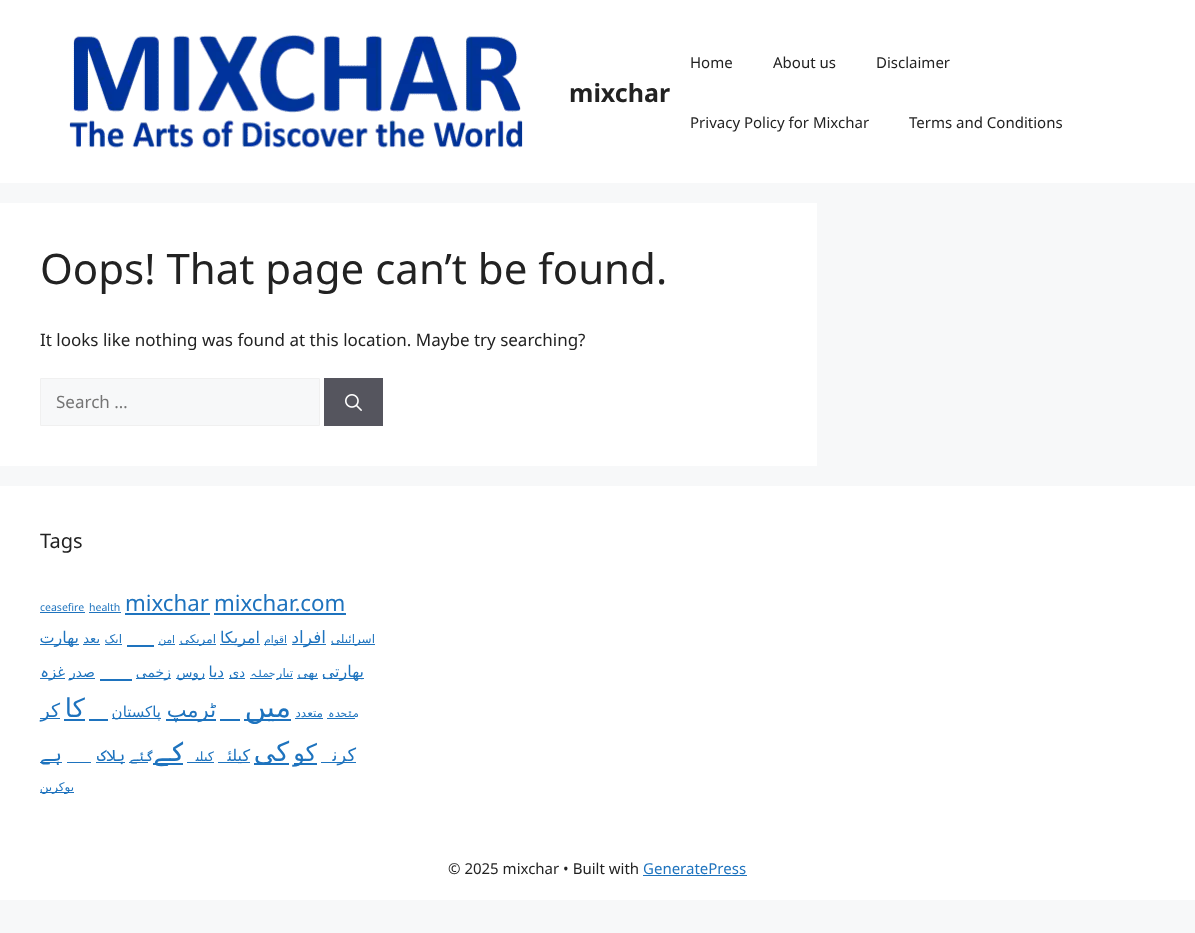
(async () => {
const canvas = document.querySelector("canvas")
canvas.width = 1195
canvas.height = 933
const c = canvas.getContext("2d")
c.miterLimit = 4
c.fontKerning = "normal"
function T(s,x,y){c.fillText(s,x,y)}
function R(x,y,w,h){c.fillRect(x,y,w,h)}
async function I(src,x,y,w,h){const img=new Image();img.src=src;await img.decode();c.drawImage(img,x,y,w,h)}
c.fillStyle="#f7f8f9"
R(0,0,1195,933)
c.fillStyle="#fff"
R(0,0,1195,183)
await I("1.png",69,35,454,113)
c.font="bold 25px Noto Sans"
c.fillStyle="#222"
T("mixchar",569,102)
c.font="15px Noto Sans"
T("Home",690,68)
T("About us",773,68)
T("Disclaimer",876,68)
T("Privacy Policy for Mixchar",690,128)
T("Terms and Conditions",909,128)
c.fillStyle="#fff"
R(0,203,817,263)
c.font="42px Noto Sans"
c.fillStyle="#222"
T("Oops! That page can’t be found.",40,284)
c.font="17px Noto Sans"
T("It looks like nothing was found at this location. Maybe try searching?",40,346)
c.fillStyle="#f7f8f9"
c.beginPath()
c.rect(40.5,378.5,279,47)
c.fill()
c.strokeStyle="#f0f0f0"
c.stroke()
c.fillStyle="#757575"
T("Search …",56,408)
c.fillStyle="#55555e"
R(324,378,59,48)
await I("2.png",345,394,17,17)
c.fillStyle="#fff"
R(0,486,1195,414)
c.font="20px Noto Sans"
c.fillStyle="#222"
T("Tags",40,548)
c.font="10.5px Noto Sans"
c.fillStyle="#1e73be"
T("ceasefire",40,611)
R(40,612,45,1)
T("health",89,611)
R(89,612,32,1)
c.font="22.25px Noto Sans"
T("mixchar",125,611)
R(125,613,85,2)
T("mixchar.com",214,611)
R(214,613,132,2)
R(40,644,39,1)
c.direction="rtl"
c.font="16px DejaVu Sans"
T("بھارت",79,643)
R(83,644,17,1)
c.font="13px DejaVu Sans"
T("بعد",100,643)
R(105,644,17,1)
c.font="12px DejaVu Sans"
T("ایک",122,643)
R(158,644,17,1)
c.font="10.5px DejaVu Sans"
T("امن",175,643)
R(179,644,37,1)
c.font="12px DejaVu Sans"
T("امریکی",216,643)
R(220,644,40,1)
c.font="16px DejaVu Sans"
T("امریکا",260,643)
R(264,644,23,1)
c.font="10.5px DejaVu Sans"
T("اقوام",287,643)
R(292,644,34,1)
c.font="17px DejaVu Sans"
T("افراد",326,643)
R(331,644,44,1)
c.font="12px DejaVu Sans"
T("اسرائیلی",375,643)
R(127,645,27,2)
c.font="15px Cascadia Code"
T("ہ",49,677)
R(40,678,25,1)
c.font="15px DejaVu Sans"
T("غز",65,677)
R(69,678,26,1)
c.font="14px DejaVu Sans"
T("صدر",95,677)
R(100,679,32,2)
R(136,678,35,1)
T("زخمی",171,677)
R(176,678,29,1)
c.font="13px DejaVu Sans"
T("روس",205,677)
R(209,678,15,1)
c.font="15px DejaVu Sans"
T("دیا",224,677)
R(229,678,16,1)
c.font="13px DejaVu Sans"
T("دی",245,677)
c.font="10.5px Cascadia Code"
T("حملہ",275,677)
R(250,678,22,1)
R(277,678,16,1)
c.font="12px DejaVu Sans"
T("تیار",293,677)
R(297,678,21,1)
c.font="13px DejaVu Sans"
T("بھی",318,677)
R(323,678,41,1)
c.font="16px DejaVu Sans"
T("بھارتی",364,677)
R(40,718,20,1)
c.font="19px DejaVu Sans"
T("کر",60,717)
c.font="26px DejaVu Sans"
T("کا",85,717)
R(64,719,21,2)
R(112,718,49,1)
c.font="15px DejaVu Sans"
T("پاکستان",161,717)
R(166,719,50,2)
c.font="21px DejaVu Sans"
T("ٹرمپ",216,717)
R(244,719,47,2)
c.font="29px DejaVu Sans"
T("میں",291,717)
c.font="12px DejaVu Sans"
T("متعدد",323,717)
R(295,718,28,1)
c.font="10.5px Cascadia Code"
T("متحدہ",359,717)
R(327,718,28,1)
R(89,719,19,2)
R(220,719,20,2)
R(40,762,22,1)
c.font="19px Cascadia Code"
T("ہے",62,761)
R(67,762,24,1)
R(96,762,29,1)
c.font="16px Cascadia Code"
T("ہلاک",125,761)
R(129,762,19,1)
c.font="14px Cascadia Code"
T("گئے",154,761)
R(153,763,30,2)
c.font="28px Cascadia Code"
T("کے",186,761)
R(187,762,27,1)
c.font="13px DejaVu Sans"
T("کیلی‍",214,761)
R(218,762,32,1)
c.font="16px DejaVu Sans"
T("کیلئ‍",250,761)
R(254,763,35,2)
c.font="27px DejaVu Sans"
T("کی",289,761)
R(294,763,23,2)
c.font="24px DejaVu Sans"
T("کو",317,761)
R(321,762,35,1)
c.font="18px DejaVu Sans"
T("کرن‍",356,761)
R(40,792,34,1)
c.font="12px DejaVu Sans"
T("یوکرین",74,791)
c.direction="ltr"
c.font="15px Noto Sans"
c.fillStyle="#222"
T("© 2025 mixchar • Built with",448,874)
c.fillStyle="#1e73be"
T("GeneratePress",643,874)
R(643,875,104,1)
})()
